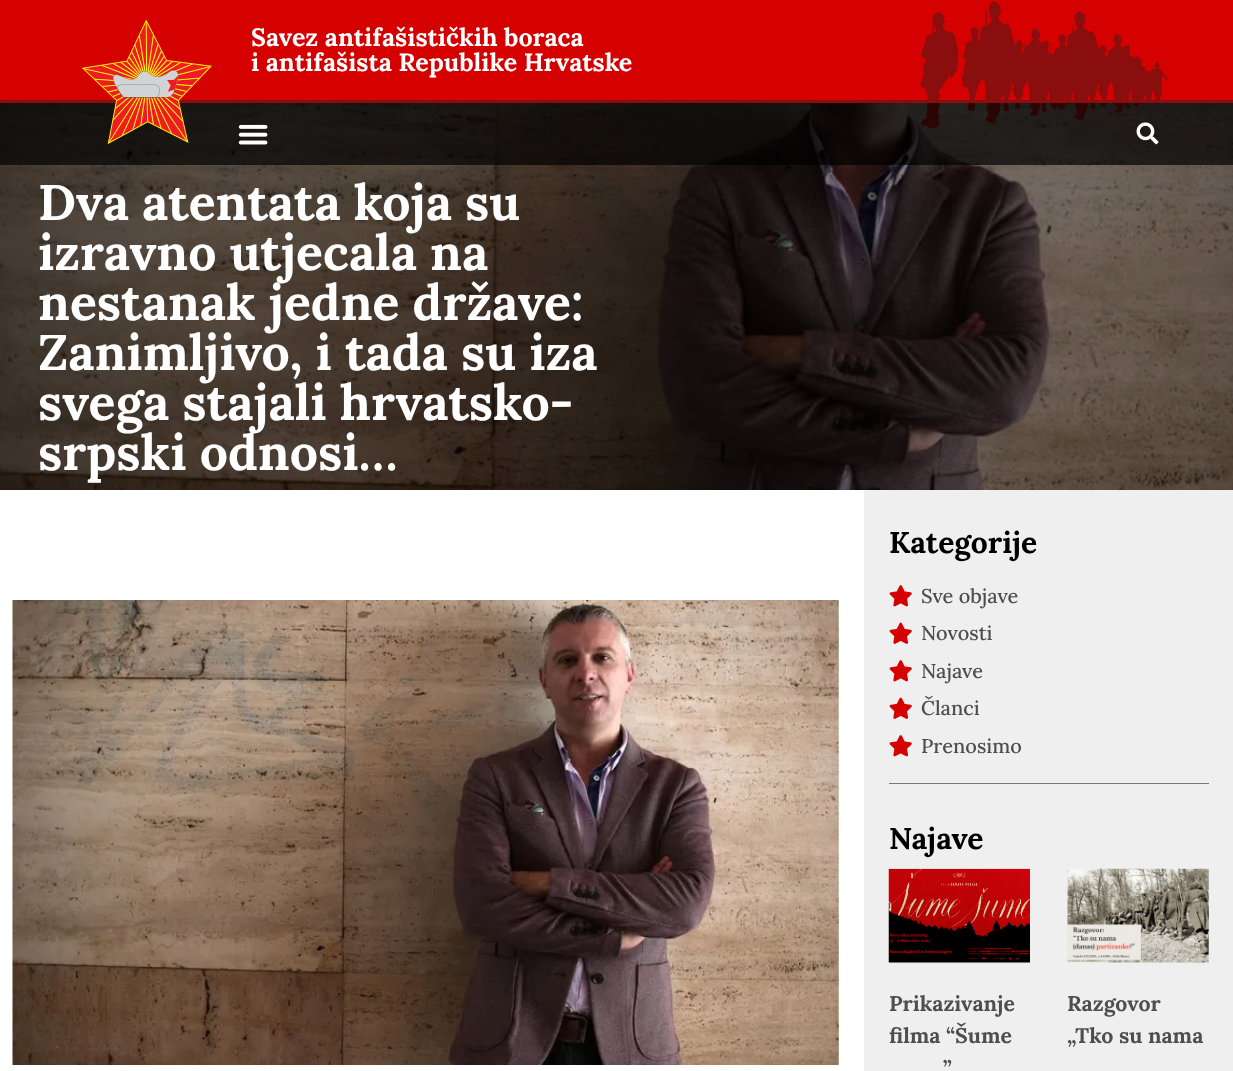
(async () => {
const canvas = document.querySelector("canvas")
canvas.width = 1233
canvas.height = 1071
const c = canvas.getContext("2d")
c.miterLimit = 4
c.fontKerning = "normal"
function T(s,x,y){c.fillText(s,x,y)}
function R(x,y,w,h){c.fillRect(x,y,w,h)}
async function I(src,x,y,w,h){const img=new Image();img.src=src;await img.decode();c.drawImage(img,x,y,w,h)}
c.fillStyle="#fff"
R(0,0,1233,1071)
c.fillStyle="#d50000"
R(0,0,1233,100)
await I("5.png",0,103,1233,387)
await I("4.png",920,0,248,128)
c.fillStyle="#000000b0"
R(0,103,1233,62)
c.fillStyle="#8a0e0e"
R(0,100,1233,3)
await I("1.png",81,19,131,125)
await I("2.png",238,124,30,21)
await I("3.png",1136,122,23,23)
c.font="bold 25px Lora"
c.fillStyle="#fff"
T("Savez antifašističkih boraca",251,46)
T("i antifašista Republike Hrvatske",251,71)
c.font="bold 50px Lora"
T("Dva atentata koja su",38,220)
T("izravno utjecala na",38,270)
T("nestanak jedne države:",38,320)
T("Zanimljivo, i tada su iza",38,370)
T("svega stajali hrvatsko-",38,420)
T("srpski odnosi…",38,470)
await I("6.png",12,600,827,465)
c.fillStyle="#efefef"
R(864,490,369,581)
c.font="bold 30px Lora"
c.fillStyle="#000"
T("Kategorije",889,553)
await I("7.png",889,585,23,22)
c.font="500 20px Lora"
c.fillStyle="#4e4e4e"
T("Sve objave",921,603)
await I("8.png",889,622,23,22)
T("Novosti",921,640)
await I("7.png",889,660,23,22)
T("Najave",921,678)
await I("8.png",889,697,23,22)
T("Članci",921,715)
await I("7.png",889,735,23,22)
T("Prenosimo",921,753)
c.fillStyle="#787878"
R(889,783,320,1)
c.font="bold 30px Lora"
c.fillStyle="#000"
T("Najave",889,849)
await I("9.png",888,868,142,95)
c.font="bold 21.25px Lora"
c.fillStyle="#4e4e4e"
T("Prikazivanje",889,1011)
T("filma “Šume",889,1043)
T("”",943,1076)
await I("10.png",1067,868,142,95)
T("Razgovor",1067,1011)
T("„Tko su nama",1067,1043)
})()
